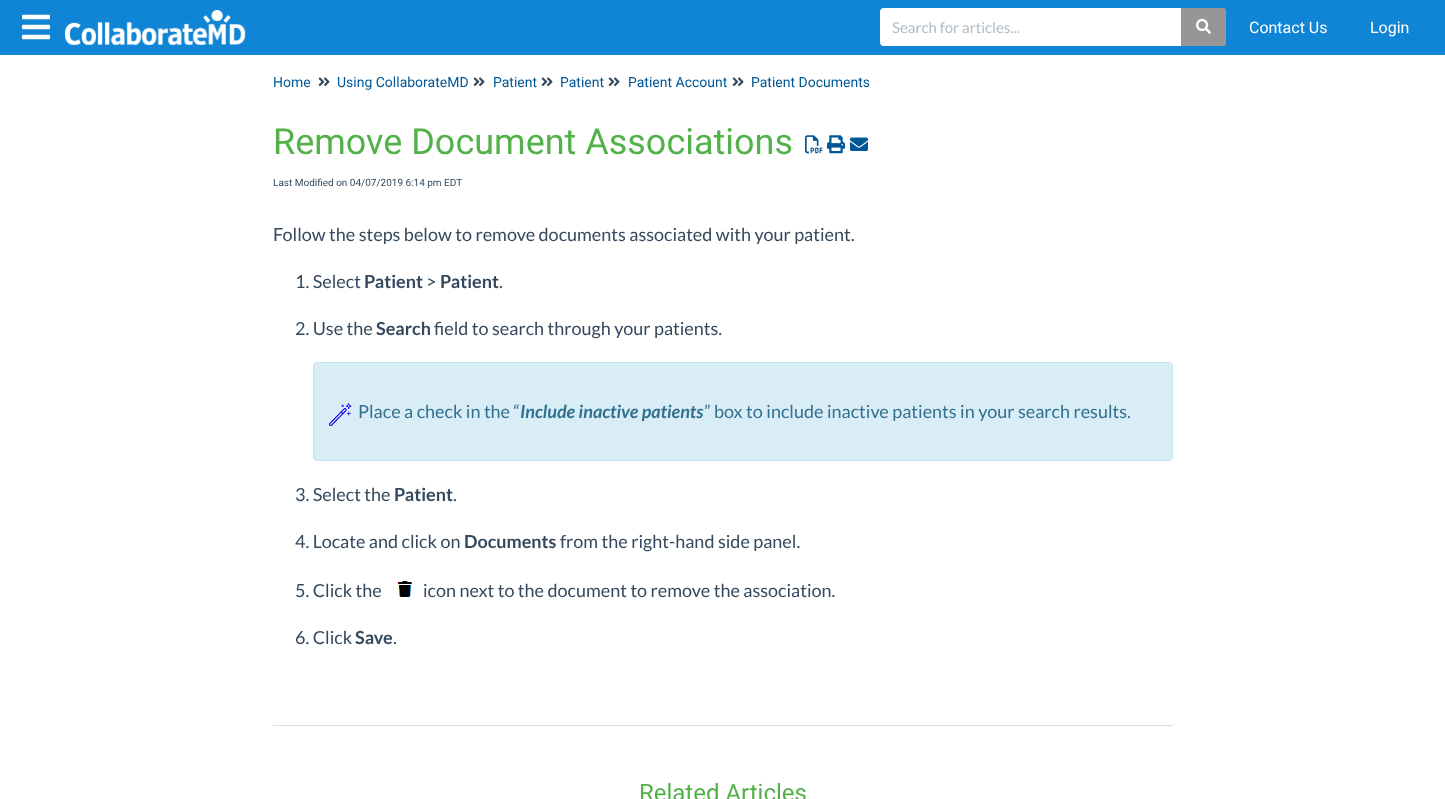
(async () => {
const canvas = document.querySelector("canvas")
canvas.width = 1445
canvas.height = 799
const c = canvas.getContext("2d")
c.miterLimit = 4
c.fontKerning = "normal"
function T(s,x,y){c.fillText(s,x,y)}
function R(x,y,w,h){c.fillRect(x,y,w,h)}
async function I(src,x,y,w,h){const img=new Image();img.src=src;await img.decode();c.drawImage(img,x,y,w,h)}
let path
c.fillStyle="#fff"
R(0,0,1445,799)
c.fillStyle="#1084d5"
R(0,0,1445,55)
await I("1.png",22,14,28,26)
await I("2.png",65,10,181,35)
c.fillStyle="#fff"
c.beginPath()
c.roundRect(879,7,304,40,[5,0,0,5])
c.fill()
c.strokeStyle="#1084d5"
c.lineWidth=2
c.stroke()
c.font="15px Lato"
c.fillStyle="#b2bcc5"
T("Search for articles...",892,33)
c.fillStyle="#969696"
c.beginPath()
c.roundRect(1181,8,45,38,[0,2,2,0])
c.fill()
c.fillStyle="#1084d5"
path = new Path2D("M1181 6h43c2 0 4 2 4 4v34c0 2-2 4-4 4h-43zm0 2h43c1 0 2 1 2 2v34c0 1-1 2-2 2h-43z")
c.fill(path,"evenodd")
await I("3.png",1196,18,15,16)
c.font="16px Roboto"
c.fillStyle="#fff"
T("Contact Us",1249,33)
T("Login",1370,33)
c.font="14px Roboto"
c.fillStyle="#005796"
T("Home",273,87)
await I("4.png",318,77,12,10)
T("Using CollaborateMD",337,87)
await I("4.png",473,77,12,10)
T("Patient",493,87)
await I("4.png",541,77,12,10)
T("Patient",560,87)
await I("4.png",608,77,12,10)
T("Patient Account",628,87)
await I("4.png",732,77,12,10)
T("Patient Documents",751,87)
c.font="36px Roboto"
c.fillStyle="#52b148"
T("Remove Document Associations",273,154)
await I("5.png",805,135,18,19)
await I("6.png",827,135,18,19)
await I("7.png",850,137,18,14)
c.font="10px Roboto"
c.fillStyle="#34495e"
T("Last Modified on 04/07/2019 6:14 pm EDT",273,186)
c.fillStyle="#ddd"
R(273,725,900,1)
c.font="18px Lato"
c.fillStyle="#34495e"
T("Follow the steps below to remove documents associated with your patient.",273,241)
T("1. Select",295,288)
c.font="bold 18px Lato"
T("Patient",364,288)
c.font="18px Lato"
T(">",426,288)
c.font="bold 18px Lato"
T("Patient",440,288)
c.font="18px Lato"
T(".",499,288)
T("2. Use the",295,335)
c.font="bold 18px Lato"
T("Search",376,335)
c.font="18px Lato"
T("field to search through your patients.",434,335)
c.fillStyle="#d9edf7"
c.beginPath()
c.roundRect(313.5,362.5,859,98,3.5)
c.fill()
c.strokeStyle="#bce8f1"
c.lineWidth=1
c.stroke()
await I("8.png",329,403,23,23)
c.fillStyle="#31708f"
T("Place a check in the “",358,418)
c.font="italic bold 18px Lato"
T("Include inactive patients",520,418)
c.font="18px Lato"
T("” box to include inactive patients in your search results.",704,418)
c.fillStyle="#34495e"
T("3. Select the",295,501)
c.font="bold 18px Lato"
T("Patient",394,501)
c.font="18px Lato"
T(".",453,501)
T("4. Locate and click on",295,548)
c.font="bold 18px Lato"
T("Documents",464,548)
c.font="18px Lato"
T("from the right-hand side panel.",560,548)
T("5. Click the",295,597)
await I("9.png",397,581,16,16)
T("icon next to the document to remove the association.",423,597)
T("6. Click",295,644)
c.font="bold 18px Lato"
T("Save",355,644)
c.font="18px Lato"
T(".",393,644)
c.font="24px Roboto"
c.fillStyle="#52b148"
T("Related Articles",639,801)
})()
